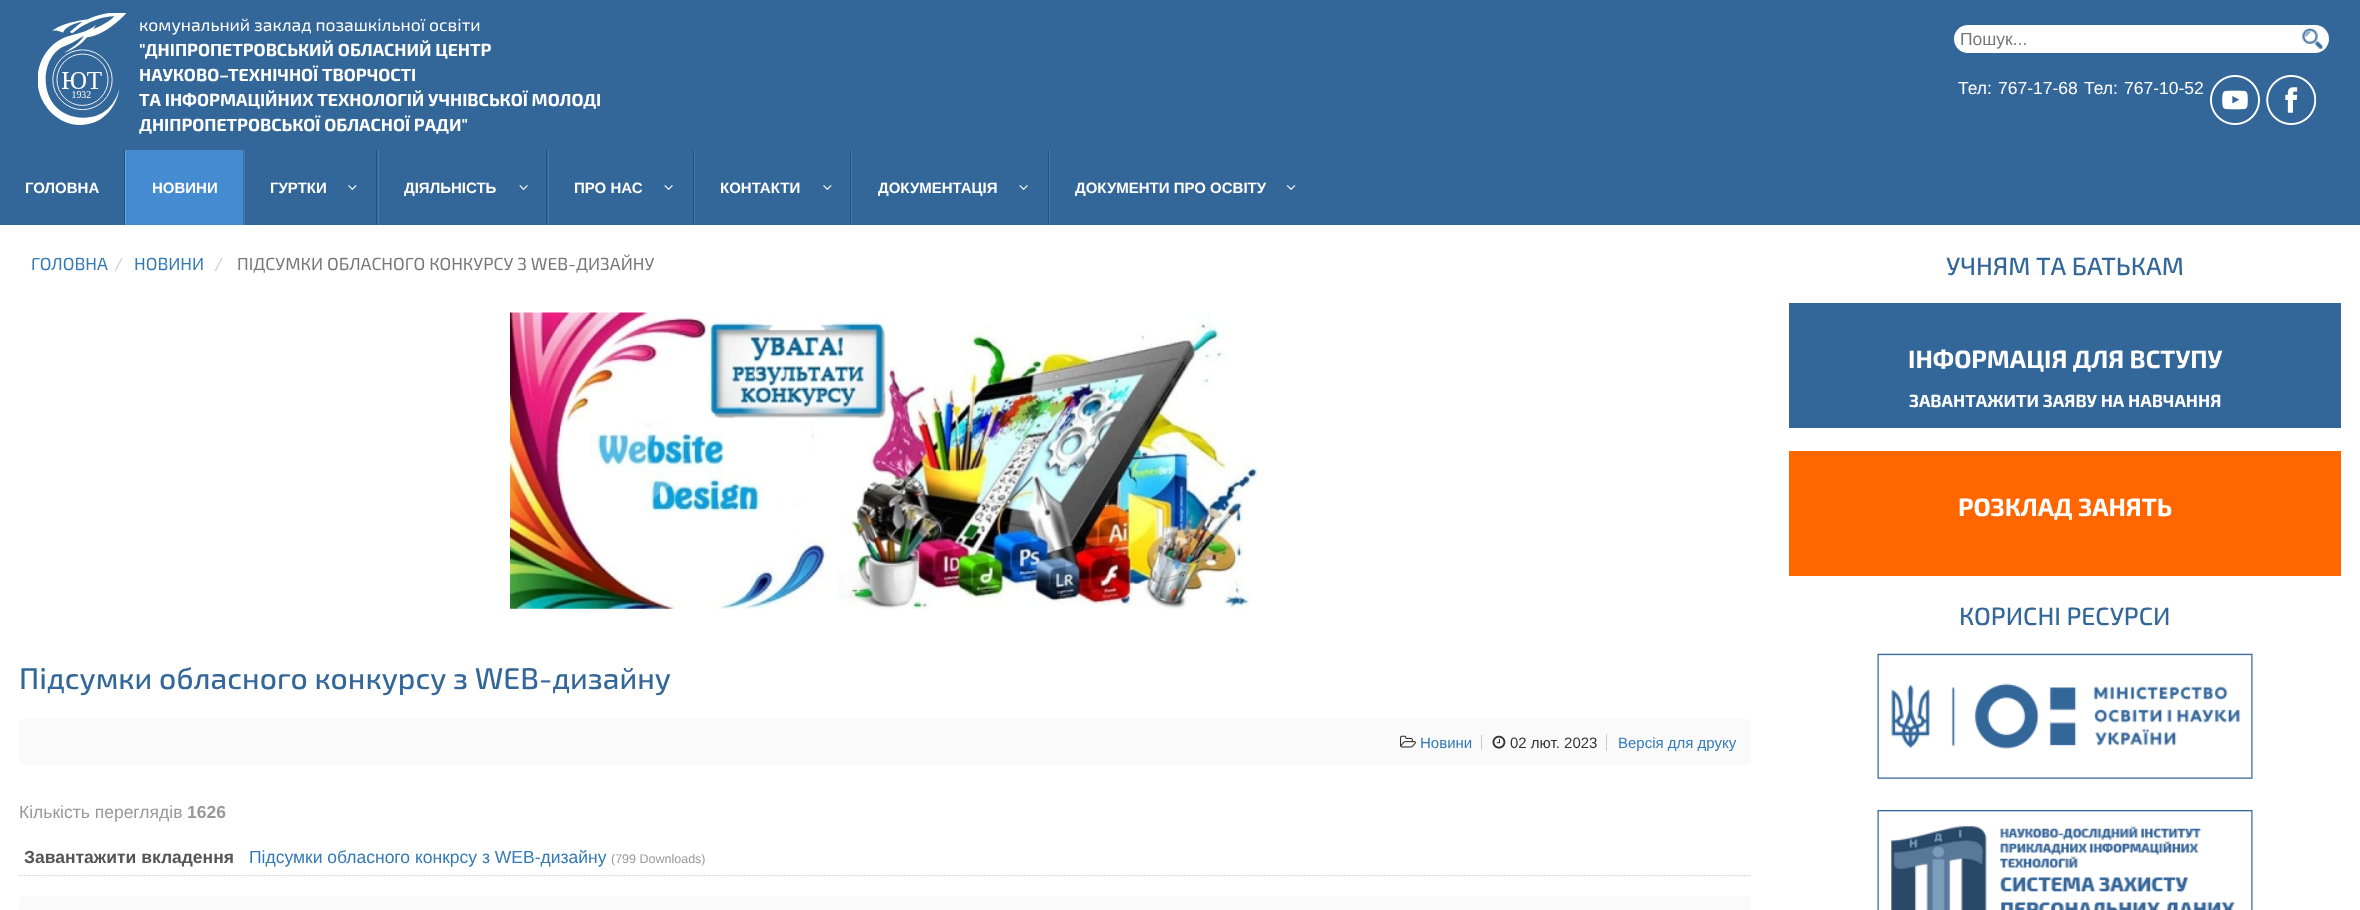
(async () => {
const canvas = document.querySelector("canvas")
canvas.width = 2360
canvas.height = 910
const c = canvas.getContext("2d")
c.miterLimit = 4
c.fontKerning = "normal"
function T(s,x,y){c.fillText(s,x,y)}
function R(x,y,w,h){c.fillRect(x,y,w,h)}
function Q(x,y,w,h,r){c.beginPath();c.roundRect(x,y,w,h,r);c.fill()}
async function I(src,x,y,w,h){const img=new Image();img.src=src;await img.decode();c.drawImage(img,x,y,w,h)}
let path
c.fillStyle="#fff"
R(0,0,2360,910)
c.fillStyle="#369"
R(0,0,2360,225)
await I("1.png",38,13,88,112)
c.font="17.5px 'Exo 2'"
c.fillStyle="#fff"
T("комунальний заклад позашкільної освіти",139,31)
c.font="bold 17.5px 'Exo 2'"
T("\"ДНІПРОПЕТРОВСЬКИЙ ОБЛАСНИЙ ЦЕНТР",139,56)
T("НАУКОВО–ТЕХНІЧНОЇ ТВОРЧОСТІ",139,81)
T("ТА ІНФОРМАЦІЙНИХ ТЕХНОЛОГІЙ УЧНІВСЬКОЇ МОЛОДІ",139,106)
T("ДНІПРОПЕТРОВСЬКОЇ ОБЛАСНОЇ РАДИ\"",139,131)
Q(1954,25,375,28,14)
c.font="17.5px Liberation Sans"
c.fillStyle="#777"
T("Пошук...",1960,45)
await I("2.png",2302,28,21,21)
c.fillStyle="#fff"
T("Тел:",1958,94)
T("767-17-68",1998,94)
T("Тел:",2084,94)
T("767-10-52",2124,94)
await I("3.png",2210,75,50,50)
await I("4.png",2266,75,50,50)
c.fillStyle="#28517a"
R(124,150,1,75)
c.font="bold 15px Liberation Sans"
c.fillStyle="#fff"
T("ГОЛОВНА",25,193)
c.fillStyle="#458bd1"
R(126,150,117,75)
c.fillStyle="#376fa7"
R(243,150,1,75)
c.fillStyle="#52a6fa"
R(125,150,1,75)
c.fillStyle="#fff"
T("НОВИНИ",152,193)
c.fillStyle="#28517a"
R(376,150,1,75)
c.fillStyle="#3d7ab7"
R(244,150,1,75)
c.fillStyle="#fff"
T("ГУРТКИ",270,193)
await I("5.png",348,185,9,5)
c.fillStyle="#28517a"
R(546,150,1,75)
c.fillStyle="#3d7ab7"
R(378,150,1,75)
c.fillStyle="#fff"
T("ДІЯЛЬНІСТЬ",404,193)
await I("6.png",519,185,9,5)
c.fillStyle="#28517a"
R(693,150,1,75)
c.fillStyle="#3d7ab7"
R(548,150,1,75)
c.fillStyle="#fff"
T("ПРО НАС",574,193)
await I("6.png",664,185,9,5)
c.fillStyle="#28517a"
R(850,150,1,75)
c.fillStyle="#3d7ab7"
R(694,150,1,75)
c.fillStyle="#fff"
T("КОНТАКТИ",720,193)
await I("5.png",823,185,9,5)
c.fillStyle="#28517a"
R(1048,150,1,75)
c.fillStyle="#3d7ab7"
R(851,150,1,75)
c.fillStyle="#fff"
T("ДОКУМЕНТАЦІЯ",878,193)
await I("6.png",1019,185,9,5)
c.fillStyle="#3d7ab7"
R(1049,150,1,75)
c.fillStyle="#fff"
T("ДОКУМЕНТИ ПРО ОСВІТУ",1075,193)
await I("7.png",1286,185,10,5)
c.font="17.5px 'Exo 2'"
c.fillStyle="#337ab7"
T("ГОЛОВНА",31,270)
c.fillStyle="#ccc"
T("/",114,270)
c.fillStyle="#337ab7"
T("НОВИНИ",134,270)
c.fillStyle="#ccc"
T("/",214,270)
c.fillStyle="#777"
T("ПІДСУМКИ ОБЛАСНОГО КОНКУРСУ З WEB-ДИЗАЙНУ",237,270)
await I("8.png",510,312,748,297)
c.font="500 30px 'Exo 2'"
c.fillStyle="#369"
T("Підсумки обласного конкурсу з WEB-дизайну",19,689)
c.fillStyle="#fafafa"
Q(19,719,1732,46,5)
await I("9.png",1400,735,16,13)
c.font="15px Liberation Sans"
c.fillStyle="#337ab7"
T("Новини",1420,748)
c.fillStyle="#ccc"
R(1481,735,1,15)
await I("10.png",1492,735,14,14)
c.fillStyle="#333"
T("02 лют. 2023",1510,748)
c.fillStyle="#337ab7"
T("Версія для друку",1618,748)
c.fillStyle="#ccc"
R(1606,734,1,17)
c.font="17.5px Liberation Sans"
c.fillStyle="#999"
T("Кількість переглядів",19,818)
c.font="bold 17.5px Liberation Sans"
T("1626",187,818)
path = new Path2D("M19 875.5h1732")
c.strokeStyle="#ccc"
c.lineWidth=1.2
c.setLineDash([1.25,1.25])
c.stroke(path)
c.fillStyle="#555"
T("Завантажити вкладення",24,863)
c.font="17.5px Liberation Sans"
c.fillStyle="#337ab7"
T("Підсумки обласного конкрсу з WEB-дизайну",249,863)
c.font="12.5px Liberation Sans"
c.fillStyle="#999"
T("(799 Downloads)",611,863)
c.fillStyle="#fafafa"
Q(19,896,1732,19,5)
c.font="500 25px 'Exo 2'"
c.fillStyle="#369"
T("УЧНЯМ ТА БАТЬКАМ",1946,275)
R(1789,303,552,125)
c.font="bold 25px 'Exo 2'"
c.fillStyle="#fff"
T("ІНФОРМАЦІЯ ДЛЯ ВСТУПУ",1908,368)
c.font="bold 17.5px 'Exo 2'"
T("ЗАВАНТАЖИТИ ЗАЯВУ НА НАВЧАННЯ",1909,407)
c.fillStyle="#f60"
R(1789,451,552,125)
c.font="bold 25px 'Exo 2'"
c.fillStyle="#fff"
T("РОЗКЛАД ЗАНЯТЬ",1958,516)
c.font="500 25px 'Exo 2'"
c.fillStyle="#369"
T("КОРИСНІ РЕСУРСИ",1959,625)
await I("11.png",1877,653,376,126)
await I("12.png",1877,810,376,100)
})()
